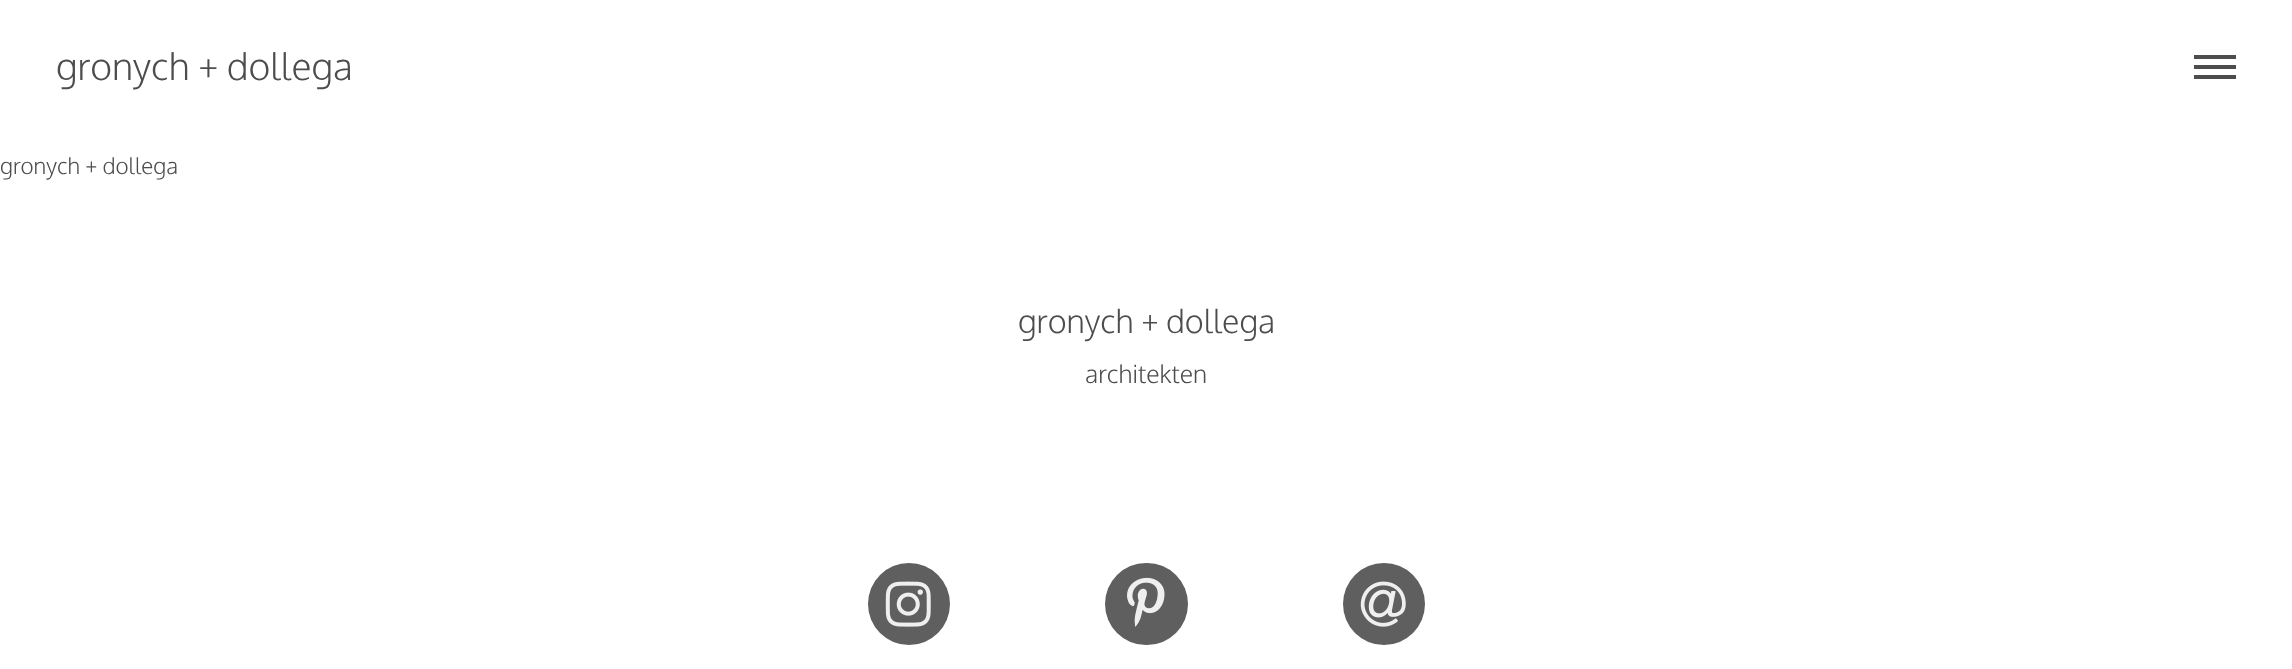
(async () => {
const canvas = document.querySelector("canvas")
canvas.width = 2292
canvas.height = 669
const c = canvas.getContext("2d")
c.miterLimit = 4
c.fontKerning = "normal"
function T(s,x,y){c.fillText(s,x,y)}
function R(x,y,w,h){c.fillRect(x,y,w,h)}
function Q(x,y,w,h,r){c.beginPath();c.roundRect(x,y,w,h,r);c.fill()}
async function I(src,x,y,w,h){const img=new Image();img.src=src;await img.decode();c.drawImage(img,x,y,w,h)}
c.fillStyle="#fff"
R(0,0,2292,669)
c.font="300 37.5px Oxygen"
c.fillStyle="#4d4d4d"
T("gronych + dollega",56,80)
R(2194,65,42,4)
R(2194,55,42,4)
R(2194,75,42,4)
c.font="300 22.5px Oxygen"
T("gronych + dollega",0,174)
c.font="300 32.5px Oxygen"
T("gronych + dollega",1018,333)
c.font="300 25px Oxygen"
T("architekten",1085,383)
c.fillStyle="#5f5f5f"
c.beginPath()
c.arc(909,604,41,0,7)
c.fill()
await I("1.png",885,581,46,46)
Q(1105,563,83,82,41)
await I("2.png",1127,577,38,50)
c.beginPath()
c.arc(1384,604,41,0,7)
c.fill()
await I("3.png",1360,581,46,46)
})()
